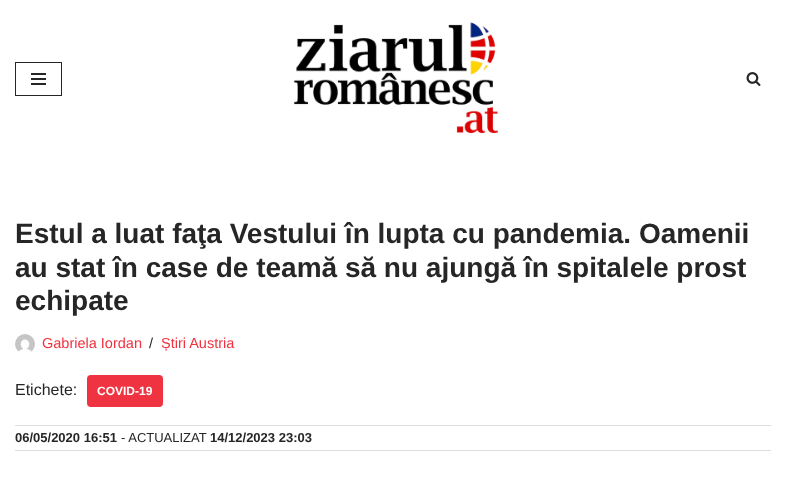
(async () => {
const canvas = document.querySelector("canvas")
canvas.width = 786
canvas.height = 483
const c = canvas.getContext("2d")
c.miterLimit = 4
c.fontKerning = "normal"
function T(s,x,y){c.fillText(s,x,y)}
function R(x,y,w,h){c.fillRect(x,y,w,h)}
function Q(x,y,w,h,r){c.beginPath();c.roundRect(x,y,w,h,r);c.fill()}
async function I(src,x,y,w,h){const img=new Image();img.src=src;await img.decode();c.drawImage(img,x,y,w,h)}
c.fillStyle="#fff"
R(0,0,786,483)
c.strokeStyle="#272626"
c.strokeRect(15.5,62.5,46,33)
c.fillStyle="#272626"
R(31,73,15,2)
R(31,78,15,2)
R(31,83,15,2)
await I("1.png",293,22,205,112)
await I("2.png",746,72,15,14)
c.font="bold 28px Liberation Sans"
T("Estul a luat faţa Vestului în lupta cu pandemia. Oamenii",15,243)
T("au stat în case de teamă să nu ajungă în spitalele prost",15,277)
T("echipate",15,310)
await I("3.png",15,334,20,18)
c.font="14.5px Liberation Sans"
c.fillStyle="#ef3340"
T("Gabriela Iordan",42,348)
c.fillStyle="#272626"
T("/",149,348)
c.fillStyle="#ef3340"
T("Știri Austria",161,348)
c.font="16px Liberation Sans"
c.fillStyle="#272626"
T("Etichete:",15,395)
c.fillStyle="#ef3340"
Q(87,375,76,32,4)
c.font="bold 12px Liberation Sans"
c.fillStyle="#fff"
T("COVID-19",97,395)
c.fillStyle="#dedede"
R(15,425,756,1)
R(15,450,756,1)
c.font="bold 13px Liberation Sans"
c.fillStyle="#272626"
T("06/05/2020 16:51",15,442)
c.font="13px Liberation Sans"
T("- ACTUALIZAT",121,442)
c.font="bold 13px Liberation Sans"
T("14/12/2023 23:03",210,442)
})()
